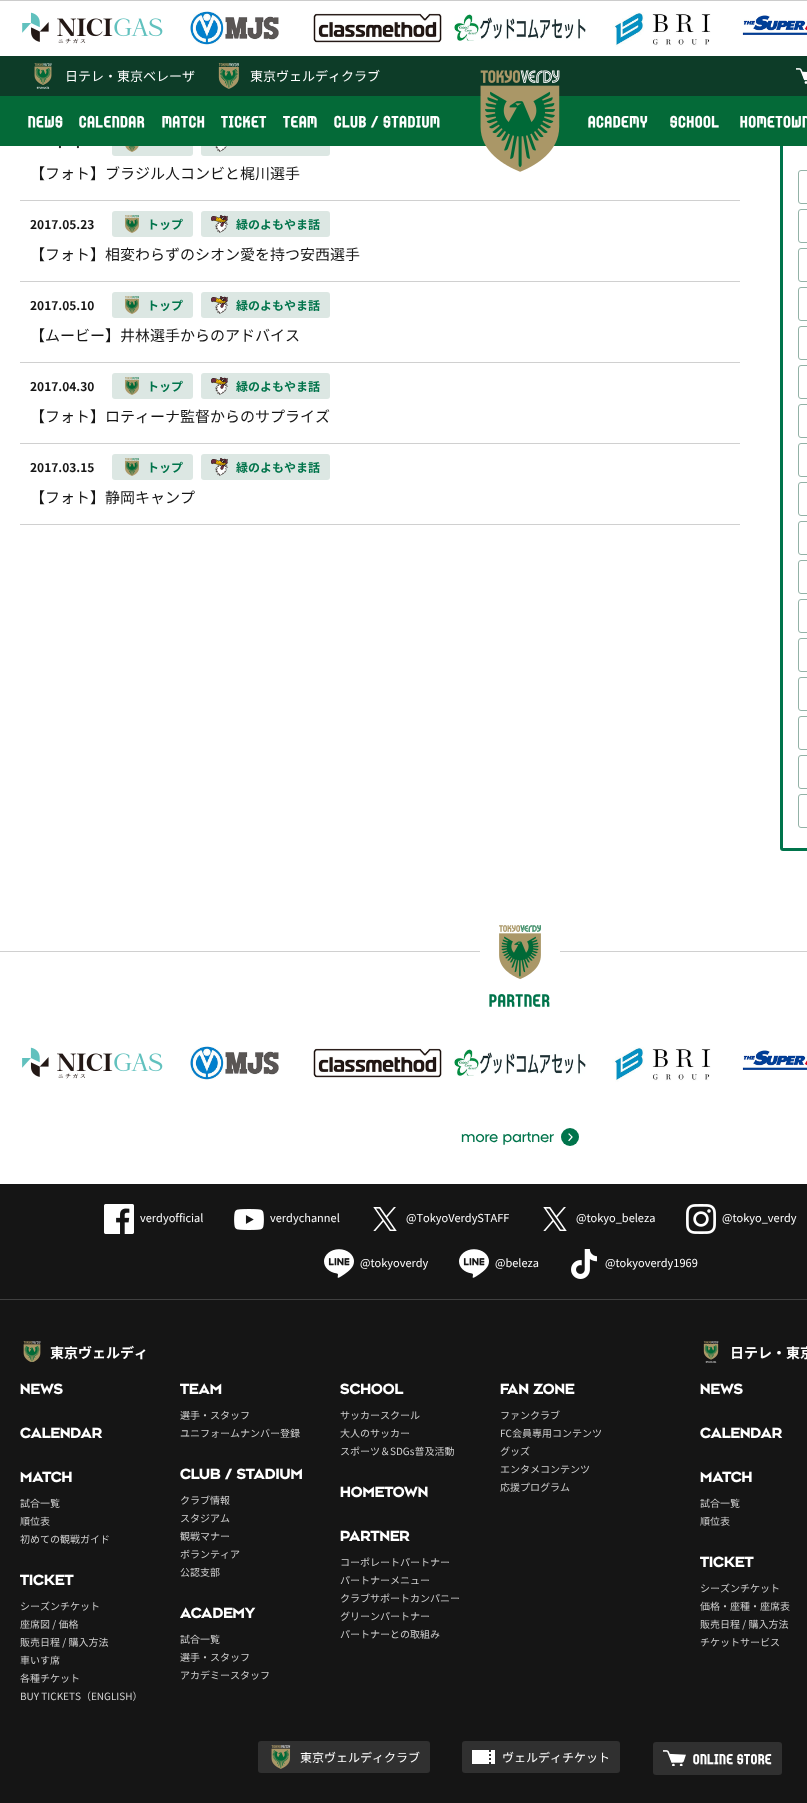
(async () => {
const canvas = document.querySelector("canvas")
canvas.width = 807
canvas.height = 1803
const c = canvas.getContext("2d")
c.miterLimit = 4
c.fontKerning = "normal"
function T(s,x,y){c.fillText(s,x,y)}
function R(x,y,w,h){c.fillRect(x,y,w,h)}
function Q(x,y,w,h,r){c.beginPath();c.roundRect(x,y,w,h,r);c.fill()}
async function I(src,x,y,w,h){const img=new Image();img.src=src;await img.decode();c.drawImage(img,x,y,w,h)}
let path
c.fillStyle="#fff"
R(0,0,807,1803)
c.beginPath()
c.roundRect(781.5,-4.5,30,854,1.5)
c.strokeStyle="#00744b"
c.lineWidth=3
c.stroke()
R(780,1,3,55)
c.fillStyle="#ccc"
R(0,0,807,1)
await I("1.png",22,12,141,32)
await I("2.png",190,11,89,34)
await I("3.png",313,13,129,30)
await I("4.png",454,14,132,27)
await I("5.png",612,12,99,35)
await I("6.png",742,15,65,20)
c.fillStyle="#0d3c28"
R(0,56,807,40)
await I("7.png",218,63,21,26)
c.font="13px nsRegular"
c.fillStyle="#fff"
T("東京ヴェルディクラブ",250,81)
await I("8.png",796,68,11,16)
c.font="bold 12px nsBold"
c.fillStyle="#151515"
T(".",58,148)
T(".",76,148)
c.fillStyle="#dce7e3"
Q(112,130,81,26,3)
Q(201,130,129,26,3)
c.fillStyle="#046a38"
R(0,96,807,50)
c.letterSpacing="0.9px"
c.font="15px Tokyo"
c.fillStyle="#fff"
T("NEWS",28,125)
T("CALENDAR",79,125)
T("MATCH",162,125)
T("TICKET",221,125)
T("TEAM",283,125)
T("CLUB / STADIUM",334,125)
T("ACADEMY",588,125)
T("SCHOOL",670,125)
T("HOMETOWN",740,125)
await I("9.png",34,63,18,26)
c.letterSpacing="0px"
c.font="13px nsRegular"
T("日テレ・東京ベレーザ",65,81)
await I("10.png",480,70,80,102)
c.fillStyle="#d0d0d0"
R(20,200,720,1)
await I("11.png",125,146,14,6)
await I("12.png",215,146,12,6)
c.font="15px nsRegular"
c.fillStyle="#151515"
T("【フォト】ブラジル人コンビと梶川選手",30,179)
c.fillStyle="#d0d0d0"
R(20,281,720,1)
c.font="bold 12px nsBold"
c.fillStyle="#151515"
T("2017.05.23",30,229)
c.fillStyle="#dce7e3"
Q(112,211,81,26,3)
await I("13.png",125,215,14,18)
c.fillStyle="#00744b"
T("トップ",147,229)
c.fillStyle="#dce7e3"
Q(201,211,129,26,3)
await I("14.png",211,215,17,18)
c.fillStyle="#00744b"
T("緑のよもやま話",236,229)
c.font="15px nsRegular"
c.fillStyle="#151515"
T("【フォト】相変わらずのシオン愛を持つ安西選手",30,260)
c.fillStyle="#d0d0d0"
R(20,362,720,1)
c.font="bold 12px nsBold"
c.fillStyle="#151515"
T("2017.05.10",30,310)
c.fillStyle="#dce7e3"
Q(112,292,81,26,3)
await I("13.png",125,296,14,18)
c.fillStyle="#00744b"
T("トップ",147,310)
c.fillStyle="#dce7e3"
Q(201,292,129,26,3)
await I("14.png",211,296,17,18)
c.fillStyle="#00744b"
T("緑のよもやま話",236,310)
c.font="15px nsRegular"
c.fillStyle="#151515"
T("【ムービー】井林選手からのアドバイス",30,341)
c.fillStyle="#d0d0d0"
R(20,443,720,1)
c.font="bold 12px nsBold"
c.fillStyle="#151515"
T("2017.04.30",30,391)
c.fillStyle="#dce7e3"
Q(112,373,81,26,3)
await I("13.png",125,377,14,18)
c.fillStyle="#00744b"
T("トップ",147,391)
c.fillStyle="#dce7e3"
Q(201,373,129,26,3)
await I("14.png",211,377,17,18)
c.fillStyle="#00744b"
T("緑のよもやま話",236,391)
c.font="15px nsRegular"
c.fillStyle="#151515"
T("【フォト】ロティーナ監督からのサプライズ",30,422)
c.fillStyle="#d0d0d0"
R(20,524,720,1)
c.font="bold 12px nsBold"
c.fillStyle="#151515"
T("2017.03.15",30,472)
c.fillStyle="#dce7e3"
Q(112,454,81,26,3)
await I("13.png",125,458,14,18)
c.fillStyle="#00744b"
T("トップ",147,472)
c.fillStyle="#dce7e3"
Q(201,454,129,26,3)
await I("14.png",211,458,17,18)
c.fillStyle="#00744b"
T("緑のよもやま話",236,472)
c.font="15px nsRegular"
c.fillStyle="#151515"
T("【フォト】静岡キャンプ",30,503)
c.beginPath()
c.roundRect(798.5,170.5,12,33,2.5)
c.strokeStyle="#93b2a7"
c.lineWidth=1
c.stroke()
c.beginPath()
c.roundRect(798.5,209.5,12,33,2.5)
c.stroke()
c.beginPath()
c.roundRect(798.5,248.5,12,33,2.5)
c.stroke()
c.beginPath()
c.roundRect(798.5,287.5,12,33,2.5)
c.stroke()
c.beginPath()
c.roundRect(798.5,326.5,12,33,2.5)
c.stroke()
c.beginPath()
c.roundRect(798.5,365.5,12,33,2.5)
c.stroke()
c.beginPath()
c.roundRect(798.5,404.5,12,33,2.5)
c.stroke()
c.beginPath()
c.roundRect(798.5,443.5,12,33,2.5)
c.stroke()
c.beginPath()
c.roundRect(798.5,482.5,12,33,2.5)
c.stroke()
c.beginPath()
c.roundRect(798.5,521.5,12,33,2.5)
c.stroke()
c.beginPath()
c.roundRect(798.5,560.5,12,33,2.5)
c.stroke()
c.beginPath()
c.roundRect(798.5,599.5,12,33,2.5)
c.stroke()
c.beginPath()
c.roundRect(798.5,638.5,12,33,2.5)
c.stroke()
c.beginPath()
c.roundRect(798.5,677.5,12,33,2.5)
c.stroke()
c.beginPath()
c.roundRect(798.5,716.5,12,33,2.5)
c.stroke()
c.beginPath()
c.roundRect(798.5,755.5,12,33,2.5)
c.stroke()
c.beginPath()
c.roundRect(798.5,794.5,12,33,2.5)
c.stroke()
c.fillStyle="#d0d0d0"
R(0,951,807,1)
c.fillStyle="#fff"
R(480,951,80,1)
await I("15.png",499,925,42,54)
c.letterSpacing="1px"
c.font="16px Tokyo"
c.fillStyle="#00744b"
T("PARTNER",489,1004)
await I("16.png",22,1047,141,32)
await I("17.png",190,1046,89,34)
await I("3.png",313,1048,129,30)
await I("4.png",454,1049,132,27)
await I("18.png",612,1047,99,35)
await I("6.png",742,1050,65,20)
c.letterSpacing="0px"
c.font="14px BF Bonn"
T("more partner",461,1142)
c.beginPath()
c.arc(570,1137,9,0,7)
c.fill()
path = new Path2D("M569 1140.5l3-3.5m-3-3l3 3")
c.strokeStyle="#fff"
c.lineWidth=1.2
c.lineCap="square"
c.stroke(path)
c.fillStyle="#151515"
R(0,1184,807,115)
c.fillStyle="#404040"
R(0,1299,807,1)
await I("19.png",104,1204,30,30)
c.font="11px nsRegular"
c.fillStyle="#fff"
T("verdyofficial",140,1222)
await I("20.png",234,1209,30,21)
T("verdychannel",270,1222)
await I("21.png",373,1207,24,24)
T("@TokyoVerdySTAFF",406,1222)
await I("21.png",543,1207,24,24)
T("@tokyo_beleza",576,1222)
await I("22.png",686,1204,30,30)
T("@tokyo_verdy",722,1222)
await I("23.png",324,1249,30,29)
T("@tokyoverdy",360,1267)
await I("23.png",459,1249,30,29)
T("@beleza",495,1267)
await I("24.png",571,1249,26,30)
T("@tokyoverdy1969",605,1267)
c.fillStyle="#151515"
R(0,1300,807,503)
await I("25.png",23,1341,18,21)
c.font="bold 14px nsBold"
c.fillStyle="#fff"
T("東京ヴェルディ",50,1358)
c.font="bold 14px BF Bonn"
T("NEWS",20,1394)
T("CALENDAR",20,1438)
T("MATCH",20,1482)
c.font="10px nsRegular"
c.fillStyle="#d0d0d0"
T("試合一覧",20,1507)
T("順位表",20,1525)
T("初めての観戦ガイド",20,1543)
c.font="bold 14px BF Bonn"
c.fillStyle="#fff"
T("TICKET",20,1585)
c.font="10px nsRegular"
c.fillStyle="#d0d0d0"
T("シーズンチケット",20,1610)
T("座席図 / 価格",20,1628)
T("販売日程 / 購入方法",20,1646)
T("車いす席",20,1664)
T("各種チケット",20,1682)
T("BUY TICKETS（ENGLISH）",20,1700)
c.font="bold 14px BF Bonn"
c.fillStyle="#fff"
T("TEAM",180,1394)
c.font="10px nsRegular"
c.fillStyle="#d0d0d0"
T("選手・スタッフ",180,1419)
T("ユニフォームナンバー登録",180,1437)
c.font="bold 14px BF Bonn"
c.fillStyle="#fff"
T("CLUB / STADIUM",180,1479)
c.font="10px nsRegular"
c.fillStyle="#d0d0d0"
T("クラブ情報",180,1504)
T("スタジアム",180,1522)
T("観戦マナー",180,1540)
T("ボランティア",180,1558)
T("公認支部",180,1576)
c.font="bold 14px BF Bonn"
c.fillStyle="#fff"
T("ACADEMY",180,1618)
c.font="10px nsRegular"
c.fillStyle="#d0d0d0"
T("試合一覧",180,1643)
T("選手・スタッフ",180,1661)
T("アカデミースタッフ",180,1679)
c.font="bold 14px BF Bonn"
c.fillStyle="#fff"
T("SCHOOL",340,1394)
c.font="10px nsRegular"
c.fillStyle="#d0d0d0"
T("サッカースクール",340,1419)
T("大人のサッカー",340,1437)
T("スポーツ＆SDGs普及活動",340,1455)
c.font="bold 14px BF Bonn"
c.fillStyle="#fff"
T("HOMETOWN",340,1497)
T("PARTNER",340,1541)
c.font="10px nsRegular"
c.fillStyle="#d0d0d0"
T("コーポレートパートナー",340,1566)
T("パートナーメニュー",340,1584)
T("クラブサポートカンパニー",340,1602)
T("グリーンパートナー",340,1620)
T("パートナーとの取組み",340,1638)
c.font="bold 14px BF Bonn"
c.fillStyle="#fff"
T("FAN ZONE",500,1394)
c.font="10px nsRegular"
c.fillStyle="#d0d0d0"
T("ファンクラブ",500,1419)
T("FC会員専用コンテンツ",500,1437)
T("グッズ",500,1455)
T("エンタメコンテンツ",500,1473)
T("応援プログラム",500,1491)
await I("26.png",703,1341,16,22)
c.font="bold 14px nsBold"
c.fillStyle="#fff"
T("日テレ・東京",730,1358)
c.font="bold 14px BF Bonn"
T("NEWS",700,1394)
T("CALENDAR",700,1438)
T("MATCH",700,1482)
c.font="10px nsRegular"
c.fillStyle="#d0d0d0"
T("試合一覧",700,1507)
T("順位表",700,1525)
c.font="bold 14px BF Bonn"
c.fillStyle="#fff"
T("TICKET",700,1567)
c.font="10px nsRegular"
c.fillStyle="#d0d0d0"
T("シーズンチケット",700,1592)
T("価格・座種・座席表",700,1610)
T("販売日程 / 購入方法",700,1628)
T("チケットサービス",700,1646)
c.fillStyle="#303030"
Q(258,1741,172,32,3)
await I("27.png",271,1745,20,24)
c.font="12px nsRegular"
c.fillStyle="#fff"
T("東京ヴェルディクラブ",300,1762)
c.fillStyle="#303030"
Q(462,1741,158,32,3)
await I("28.png",472,1750,23,14)
c.fillStyle="#fff"
T("ヴェルディチケット",502,1762)
c.fillStyle="#303030"
Q(653,1742,129,33,3)
await I("29.png",663,1750,23,16)
c.letterSpacing="0.75px"
c.font="13px Tokyo"
c.fillStyle="#fff"
T("ONLINE STORE",693,1762)
})()
